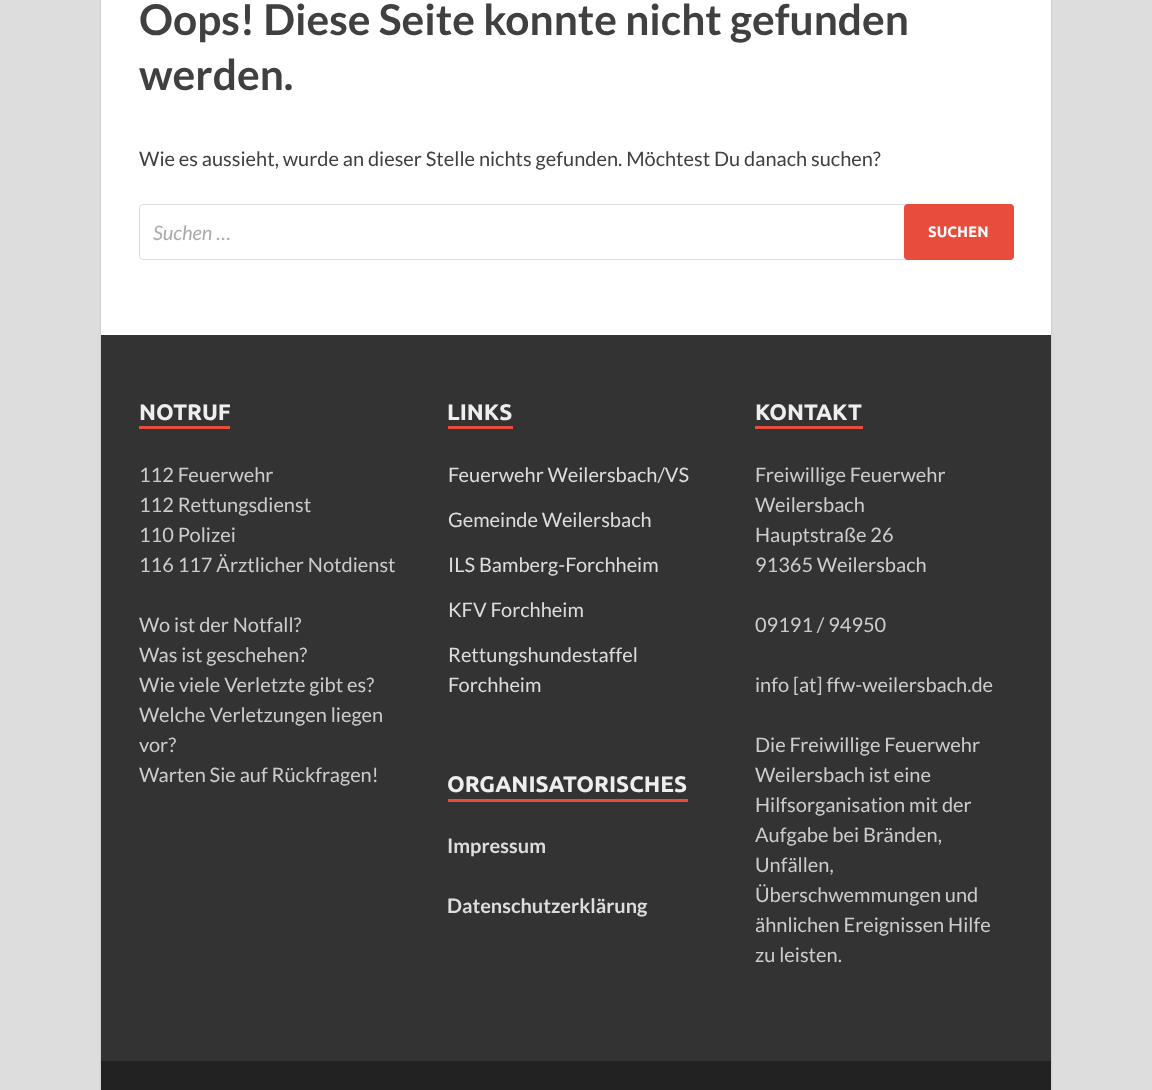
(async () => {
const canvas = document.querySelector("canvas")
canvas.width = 1152
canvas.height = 1090
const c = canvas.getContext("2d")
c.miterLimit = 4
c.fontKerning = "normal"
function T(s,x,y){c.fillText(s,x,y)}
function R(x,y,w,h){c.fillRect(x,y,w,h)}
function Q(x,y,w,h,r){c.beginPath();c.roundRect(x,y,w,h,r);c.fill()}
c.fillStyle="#ddd"
R(0,0,1152,1090)
c.fillStyle="#bbb"
c.filter="blur(1px)"
c.beginPath()
c.rect(101,-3,950,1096)
c.fill()
c.filter="none"
c.fillStyle="#fff"
R(101,0,950,335)
c.font="bold 42.5px Lato"
c.fillStyle="#404040"
T("Oops! Diese Seite konnte nicht gefunden",139,35)
T("werden.",139,90)
c.font="20px Lato"
T("Wie es aussieht, wurde an dieser Stelle nichts gefunden. Möchtest Du danach suchen?",139,166)
c.beginPath()
c.roundRect(139.5,204.5,874,55,3.5)
c.strokeStyle="#ddd"
c.stroke()
c.font="italic 20px Lato"
c.fillStyle="#aaa"
T("Suchen …",153,240)
c.fillStyle="#e74c3c"
Q(904,204,110,56,4)
c.font="bold 15px Ubuntu"
c.fillStyle="#fff"
T("SUCHEN",928,237)
c.fillStyle="#333"
R(101,335,950,726)
c.fillStyle="#e74c3c"
R(139,426,91,3)
c.font="bold 22.5px Ubuntu"
c.fillStyle="#eee"
T("NOTRUF",139,420)
c.font="20px Lato"
c.fillStyle="#ccc"
T("112 Feuerwehr",139,482)
T("112 Rettungsdienst",139,512)
T("110 Polizei",139,542)
T("116 117 Ärztlicher Notdienst",139,572)
T("Wo ist der Notfall?",139,632)
T("Was ist geschehen?",139,662)
T("Wie viele Verletzte gibt es?",139,692)
T("Welche Verletzungen liegen",139,722)
T("vor?",139,752)
T("Warten Sie auf Rückfragen!",139,782)
c.fillStyle="#e74c3c"
R(448,426,65,3)
c.font="bold 22.5px Ubuntu"
c.fillStyle="#eee"
T("LINKS",447,420)
c.font="20px Lato"
c.fillStyle="#ddd"
T("Feuerwehr Weilersbach/VS",448,482)
T("Gemeinde Weilersbach",448,527)
T("ILS Bamberg-Forchheim",448,572)
T("KFV Forchheim",448,617)
T("Rettungshundestaffel",448,662)
T("Forchheim",448,692)
c.fillStyle="#e74c3c"
R(448,799,240,3)
c.font="bold 22.5px Ubuntu"
c.fillStyle="#eee"
T("ORGANISATORISCHES",447,792)
c.font="bold 20px Lato"
c.fillStyle="#ddd"
T("Impressum",447,853)
T("Datenschutzerklärung",447,913)
c.fillStyle="#e74c3c"
R(755,426,108,3)
c.font="bold 22.5px Ubuntu"
c.fillStyle="#eee"
T("KONTAKT",755,420)
c.font="20px Lato"
c.fillStyle="#ccc"
T("Freiwillige Feuerwehr",755,482)
T("Weilersbach",755,512)
T("Hauptstraße 26",755,542)
T("91365 Weilersbach",755,572)
T("09191 / 94950",755,632)
T("info [at] ffw-weilersbach.de",755,692)
T("Die Freiwillige Feuerwehr",755,752)
T("Weilersbach ist eine",755,782)
T("Hilfsorganisation mit der",755,812)
T("Aufgabe bei Bränden,",755,842)
T("Unfällen,",755,872)
T("Überschwemmungen und",755,902)
T("ähnlichen Ereignissen Hilfe",755,932)
T("zu leisten.",755,962)
c.fillStyle="#222"
R(101,1061,950,29)
})()
